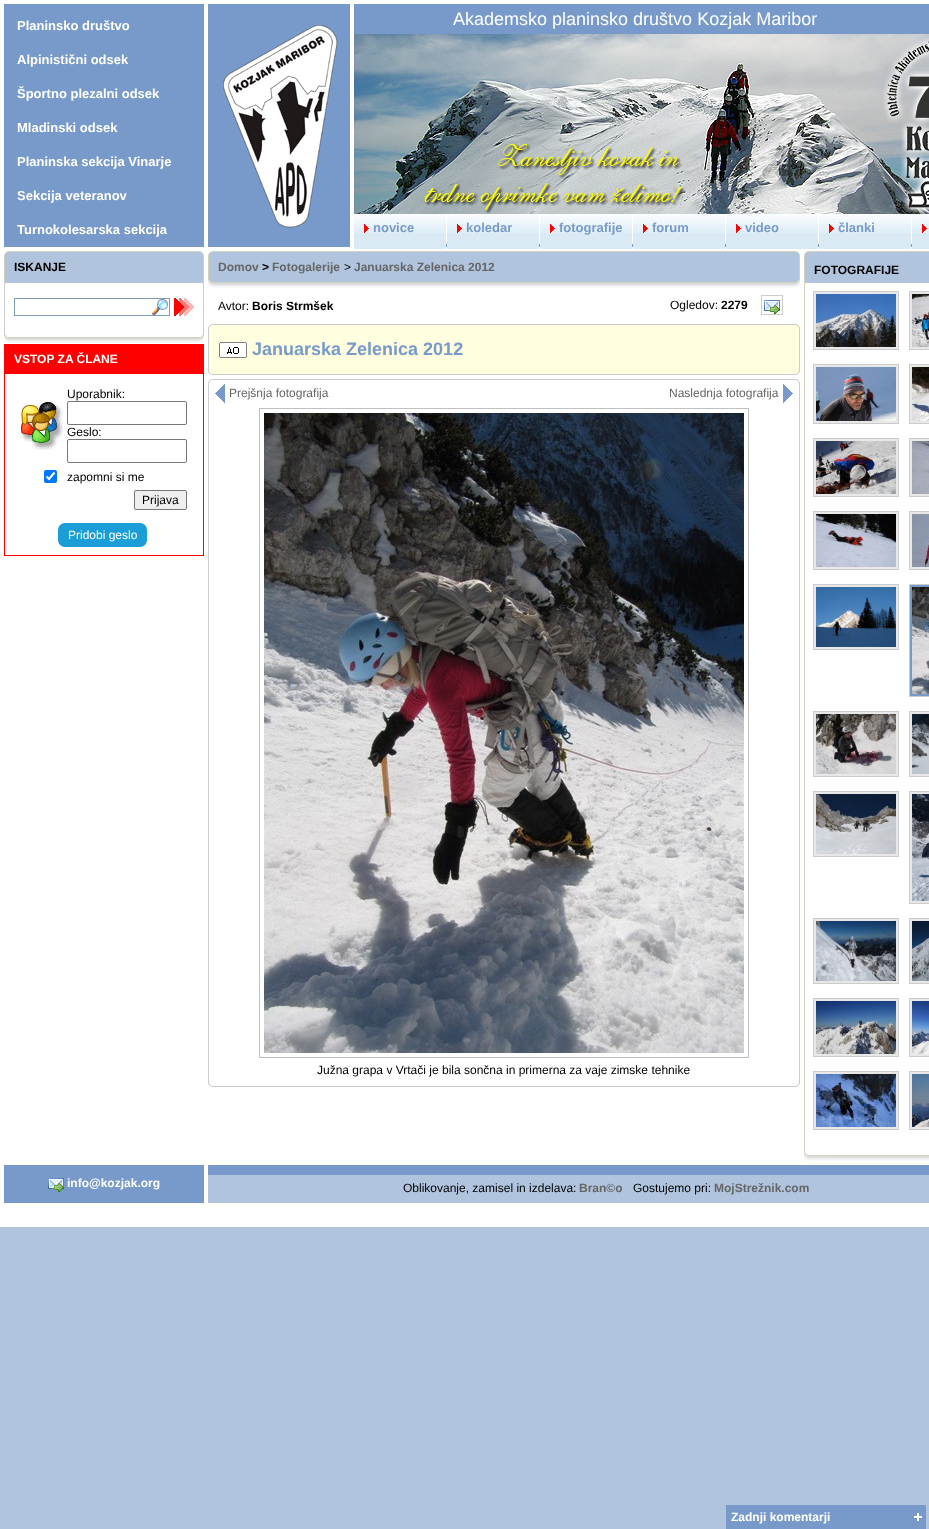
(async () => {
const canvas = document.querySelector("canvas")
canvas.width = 929
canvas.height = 1529
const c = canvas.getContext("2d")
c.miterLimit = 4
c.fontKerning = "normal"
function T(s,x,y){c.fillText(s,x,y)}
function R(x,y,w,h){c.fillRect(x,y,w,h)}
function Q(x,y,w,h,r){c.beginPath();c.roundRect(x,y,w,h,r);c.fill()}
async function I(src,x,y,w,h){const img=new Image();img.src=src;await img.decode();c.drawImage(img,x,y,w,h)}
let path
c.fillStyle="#b0c4de"
R(0,0,929,1529)
c.fillStyle="#fff"
R(0,0,929,1227)
c.fillStyle="#779acb"
R(4,4,925,243)
c.font="bold 13px Liberation Sans"
c.fillStyle="#fff"
T("Planinsko društvo",17,30)
T("Alpinistični odsek",17,64)
T("Športno plezalni odsek",17,98)
T("Mladinski odsek",17,132)
T("Planinska sekcija Vinarje",17,166)
T("Sekcija veteranov",17,200)
T("Turnokolesarska sekcija",17,234)
R(204,4,4,243)
await I("1.png",223,25,115,203)
R(350,4,4,243)
c.font="18px Liberation Sans"
T("Akademsko planinsko društvo Kozjak Maribor",453,25)
await I("2.png",354,34,575,180)
await I("3.png",883,37,46,177)
await I("4.png",354,214,92,35)
await I("5.png",364,224,5,9)
c.font="bold 13px Liberation Sans"
c.fillStyle="#779acb"
T("novice",373,232)
c.fillStyle="#fff"
R(446,214,1,30)
await I("4.png",447,214,92,35)
await I("5.png",457,224,5,9)
c.fillStyle="#779acb"
T("koledar",466,232)
c.fillStyle="#fff"
R(539,214,1,30)
await I("4.png",540,214,92,35)
await I("5.png",550,224,5,9)
c.fillStyle="#779acb"
T("fotografije",559,232)
c.fillStyle="#fff"
R(632,214,1,30)
await I("4.png",633,214,92,35)
await I("5.png",643,224,5,9)
c.fillStyle="#779acb"
T("forum",652,232)
c.fillStyle="#fff"
R(725,214,1,30)
await I("4.png",726,214,92,35)
await I("5.png",736,224,5,9)
c.fillStyle="#779acb"
T("video",745,232)
c.fillStyle="#fff"
R(818,214,1,30)
await I("4.png",819,214,92,35)
await I("5.png",829,224,5,9)
c.fillStyle="#779acb"
T("članki",838,232)
c.fillStyle="#fff"
R(911,214,1,30)
await I("6.png",912,214,17,35)
await I("5.png",922,224,5,9)
c.fillStyle="#b0c4de"
R(5,252,198,31)
await I("7.png",4,251,200,32)
c.font="bold 12px Liberation Sans"
c.fillStyle="#000"
T("ISKANJE",14,271)
c.fillStyle="#ccc"
R(203,283,1,50)
R(4,283,1,50)
await I("8.png",152,299,16,16)
c.strokeStyle="#7f9db9"
c.strokeRect(14.5,298.5,155,17)
await I("9.png",174,298,20,18)
await I("10.png",4,333,200,10)
c.fillStyle="#f00"
R(4,344,200,30)
c.fillStyle="#fff"
T("VSTOP ZA ČLANE",14,363)
c.fillStyle="#f00"
R(203,374,1,182)
R(4,555,200,1)
R(4,374,1,182)
await I("11.png",20,402,43,48)
c.font="12px Liberation Sans"
c.fillStyle="#000"
T("Uporabnik:",67,398)
c.beginPath()
c.roundRect(67.5,401.5,119,23,1.5)
c.strokeStyle="#767676"
c.stroke()
T("Geslo:",67,436)
c.beginPath()
c.roundRect(67.5,439.5,119,23,1.5)
c.stroke()
c.fillStyle="#0075ff"
Q(44,470,13,13,2)
path = new Path2D("M46.5 476.5l2.5 2.5l5.5-6.5")
c.strokeStyle="#fff"
c.lineWidth=2.1
c.stroke(path)
c.fillStyle="#000"
T("zapomni si me",67,481)
c.fillStyle="#efefef"
c.beginPath()
c.roundRect(134.5,490.5,52,19,1.5)
c.fill()
c.strokeStyle="#767676"
c.lineWidth=1
c.stroke()
c.fillStyle="#000"
T("Prijava",142,504)
c.fillStyle="#1b9dd8"
Q(58,523,89,24,7)
c.fillStyle="#fff"
T("Pridobi geslo",68,539)
c.fillStyle="#b0c4de"
R(209,252,590,30)
await I("12.png",208,251,592,37)
c.font="bold 12px Liberation Sans"
c.fillStyle="#666"
T("Domov",218,271)
c.fillStyle="#000"
T(">",262,271)
c.fillStyle="#666"
T("Fotogalerije",272,271)
c.font="12px Liberation Sans"
c.fillStyle="#000"
T(">",344,271)
c.font="bold 12px Liberation Sans"
c.fillStyle="#666"
T("Januarska Zelenica 2012",354,271)
c.fillStyle="#b0c4de"
R(805,252,124,31)
await I("13.png",804,251,125,37)
c.fillStyle="#000"
T("FOTOGRAFIJE",814,274)
c.font="12px Liberation Sans"
T("Avtor:",218,310)
c.font="bold 12px Liberation Sans"
T("Boris Strmšek",252,310)
c.font="12px Liberation Sans"
T("Ogledov:",670,309)
c.font="bold 12px Liberation Sans"
T("2279",721,309)
c.strokeStyle="#ccc"
c.strokeRect(761.5,295.5,21,19)
await I("14.png",764,300,16,14)
await I("15.png",208,324,592,5)
c.fillStyle="#ffffe0"
R(209,329,590,41)
c.fillStyle="#ccc"
R(799,329,1,41)
R(208,329,1,41)
await I("16.png",219,342,28,16)
c.font="bold 18px Liberation Sans"
c.fillStyle="#779acb"
T("Januarska Zelenica 2012",252,355)
await I("17.png",208,370,592,5)
await I("18.png",208,379,592,5)
c.fillStyle="#ccc"
R(208,384,1,698)
await I("19.png",215,384,10,19)
c.font="12px Liberation Sans"
c.fillStyle="#666"
T("Prejšnja fotografija",229,397)
c.fillStyle="#ccc"
R(799,384,1,698)
c.fillStyle="#666"
T("Naslednja fotografija",669,397)
await I("20.png",783,384,10,19)
c.strokeStyle="#c0c0c0"
c.strokeRect(259.5,408.5,489,649)
await I("21.png",264,413,480,640)
c.fillStyle="#000"
T("Južna grapa v Vrtači je bila sončna in primerna za vaje zimske tehnike",317,1074)
await I("22.png",208,1082,592,5)
c.fillStyle="#d3d2be"
R(804,288,1,859)
c.strokeStyle="#ccc"
c.strokeRect(813.5,291.5,85,58)
c.strokeStyle="#e8e8e8"
c.lineWidth=2
c.strokeRect(815,293,82,55)
await I("23.png",816,294,80,53)
c.strokeStyle="#ccc"
c.lineWidth=1
c.strokeRect(909.5,291.5,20,58)
c.strokeStyle="#e8e8e8"
c.lineWidth=2
c.strokeRect(911,293,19,55)
await I("24.png",912,294,17,53)
c.strokeStyle="#ccc"
c.lineWidth=1
c.strokeRect(813.5,364.5,85,59)
c.strokeStyle="#e8e8e8"
c.lineWidth=2
c.strokeRect(815,366,82,56)
await I("25.png",816,367,80,54)
c.strokeStyle="#ccc"
c.lineWidth=1
c.strokeRect(909.5,364.5,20,59)
c.strokeStyle="#e8e8e8"
c.lineWidth=2
c.strokeRect(911,366,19,56)
await I("26.png",912,367,17,54)
c.strokeStyle="#ccc"
c.lineWidth=1
c.strokeRect(813.5,438.5,85,58)
c.strokeStyle="#e8e8e8"
c.lineWidth=2
c.strokeRect(815,440,82,55)
await I("27.png",816,441,80,53)
c.strokeStyle="#ccc"
c.lineWidth=1
c.strokeRect(909.5,438.5,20,58)
c.strokeStyle="#e8e8e8"
c.lineWidth=2
c.strokeRect(911,440,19,55)
await I("28.png",912,441,17,53)
c.strokeStyle="#ccc"
c.lineWidth=1
c.strokeRect(813.5,511.5,85,58)
c.strokeStyle="#e8e8e8"
c.lineWidth=2
c.strokeRect(815,513,82,55)
await I("29.png",816,514,80,53)
c.strokeStyle="#ccc"
c.lineWidth=1
c.strokeRect(909.5,511.5,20,58)
c.strokeStyle="#e8e8e8"
c.lineWidth=2
c.strokeRect(911,513,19,55)
await I("30.png",912,514,17,53)
c.strokeStyle="#ccc"
c.lineWidth=1
c.strokeRect(813.5,584.5,85,65)
c.strokeStyle="#e8e8e8"
c.lineWidth=2
c.strokeRect(815,586,82,62)
await I("31.png",816,587,80,60)
c.strokeStyle="#ccc"
c.lineWidth=1
c.strokeRect(909.5,584.5,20,112)
c.strokeStyle="#779acb"
c.lineWidth=2
c.strokeRect(911,586,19,109)
await I("32.png",912,587,17,107)
c.strokeStyle="#ccc"
c.lineWidth=1
c.strokeRect(813.5,711.5,85,65)
c.strokeStyle="#e8e8e8"
c.lineWidth=2
c.strokeRect(815,713,82,62)
await I("33.png",816,714,80,60)
c.strokeStyle="#ccc"
c.lineWidth=1
c.strokeRect(909.5,711.5,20,65)
c.strokeStyle="#e8e8e8"
c.lineWidth=2
c.strokeRect(911,713,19,62)
await I("34.png",912,714,17,60)
c.strokeStyle="#ccc"
c.lineWidth=1
c.strokeRect(813.5,791.5,85,65)
c.strokeStyle="#e8e8e8"
c.lineWidth=2
c.strokeRect(815,793,82,62)
await I("35.png",816,794,80,60)
c.strokeStyle="#ccc"
c.lineWidth=1
c.strokeRect(909.5,791.5,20,112)
c.strokeStyle="#e8e8e8"
c.lineWidth=2
c.strokeRect(911,793,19,109)
await I("36.png",912,794,17,107)
c.strokeStyle="#ccc"
c.lineWidth=1
c.strokeRect(813.5,918.5,85,65)
c.strokeStyle="#e8e8e8"
c.lineWidth=2
c.strokeRect(815,920,82,62)
await I("37.png",816,921,80,60)
c.strokeStyle="#ccc"
c.lineWidth=1
c.strokeRect(909.5,918.5,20,65)
c.strokeStyle="#e8e8e8"
c.lineWidth=2
c.strokeRect(911,920,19,62)
await I("38.png",912,921,17,60)
c.strokeStyle="#ccc"
c.lineWidth=1
c.strokeRect(813.5,998.5,85,58)
c.strokeStyle="#e8e8e8"
c.lineWidth=2
c.strokeRect(815,1000,82,55)
await I("39.png",816,1001,80,53)
c.strokeStyle="#ccc"
c.lineWidth=1
c.strokeRect(909.5,998.5,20,58)
c.strokeStyle="#e8e8e8"
c.lineWidth=2
c.strokeRect(911,1000,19,55)
await I("40.png",912,1001,17,53)
c.strokeStyle="#ccc"
c.lineWidth=1
c.strokeRect(813.5,1071.5,85,58)
c.strokeStyle="#e8e8e8"
c.lineWidth=2
c.strokeRect(815,1073,82,55)
await I("41.png",816,1074,80,53)
c.strokeStyle="#ccc"
c.lineWidth=1
c.strokeRect(909.5,1071.5,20,58)
c.strokeStyle="#e8e8e8"
c.lineWidth=2
c.strokeRect(911,1073,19,55)
await I("42.png",912,1074,17,53)
await I("43.png",804,1147,125,14)
c.fillStyle="#779acb"
R(4,1165,200,38)
await I("44.png",48,1178,16,14)
c.font="bold 12px Liberation Sans"
c.fillStyle="#fff"
T("info@kozjak.org",67,1187)
c.fillStyle="#b0c4de"
R(208,1175,721,28)
c.fillStyle="#779acb"
R(208,1165,721,10)
c.font="12px Liberation Sans"
c.fillStyle="#000"
T("Oblikovanje, zamisel in izdelava:",403,1192)
c.font="bold 12px Liberation Sans"
c.fillStyle="#666"
T("Bran©o",579,1192)
c.font="12px Liberation Sans"
c.fillStyle="#000"
T("Gostujemo pri:",633,1192)
c.font="bold 12px Liberation Sans"
c.fillStyle="#666"
T("MojStrežnik.com",714,1192)
c.fillStyle="#779acb"
R(726,1505,200,24)
await I("45.png",914,1513,8,8)
c.fillStyle="#fff"
T("Zadnji komentarji",731,1521)
})()
